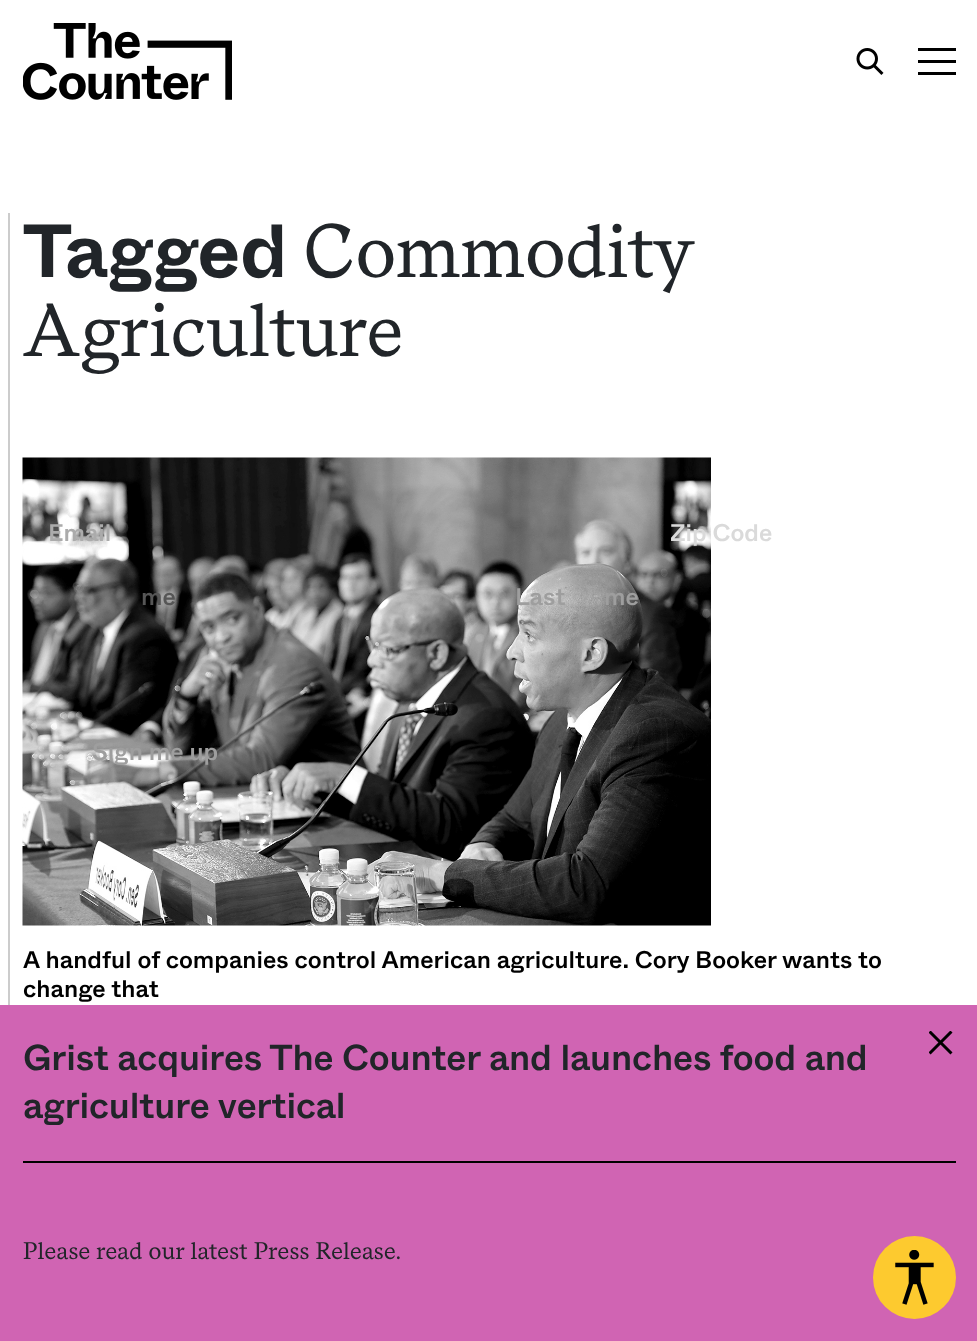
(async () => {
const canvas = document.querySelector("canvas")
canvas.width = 977
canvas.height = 1341
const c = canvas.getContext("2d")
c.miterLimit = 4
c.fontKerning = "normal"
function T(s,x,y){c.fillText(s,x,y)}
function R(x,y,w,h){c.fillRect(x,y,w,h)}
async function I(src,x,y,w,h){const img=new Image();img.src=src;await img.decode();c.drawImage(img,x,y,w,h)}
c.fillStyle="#fff"
R(0,0,977,1341)
await I("1.png",23,23,209,77)
await I("2.png",856,48,28,27)
c.fillStyle="#000"
R(918,60,38,3)
R(918,48,38,3)
R(918,72,38,3)
c.fillStyle="#ccc"
R(8,213,2,792)
c.font="bold 75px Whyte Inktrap"
c.fillStyle="#212529"
T("Tagged",23,277)
c.font="75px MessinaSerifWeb"
T("Commodity",304,277)
T("Agriculture",23,356)
await I("3.png",22,457,689,469)
c.font="500 24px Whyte"
c.fillStyle="#000"
T("A handful of companies control American agriculture. Cory Booker wants to",23,968)
T("change that",23,997)
c.fillStyle="#ababab"
T("Email",48,541)
c.fillStyle="#dadada"
T("Zip Code",670,541)
c.fillStyle="#565656"
T("me",141,605)
c.fillStyle="#9e9e9e"
T("Last",515,605)
T("me",604,605)
T("Sign me up",92,760)
c.fillStyle="#d064b3"
R(0,1005,977,336)
c.letterSpacing="-0.15px"
c.font="500 36px Whyte"
c.fillStyle="#212529"
T("Grist acquires The Counter and launches food and",23,1070)
T("agriculture vertical",23,1118)
c.fillStyle="#000"
R(23,1161,933,2)
c.letterSpacing="0.15px"
c.font="24px MessinaSerifWeb"
c.fillStyle="#212529"
T("Please read our latest Press Release.",23,1259)
await I("4.png",929,1031,24,24)
c.fillStyle="#fdca2f"
c.beginPath()
c.arc(914.5,1277.5,41.5,0,7)
c.fill()
await I("5.png",895,1250,39,55)
})()
